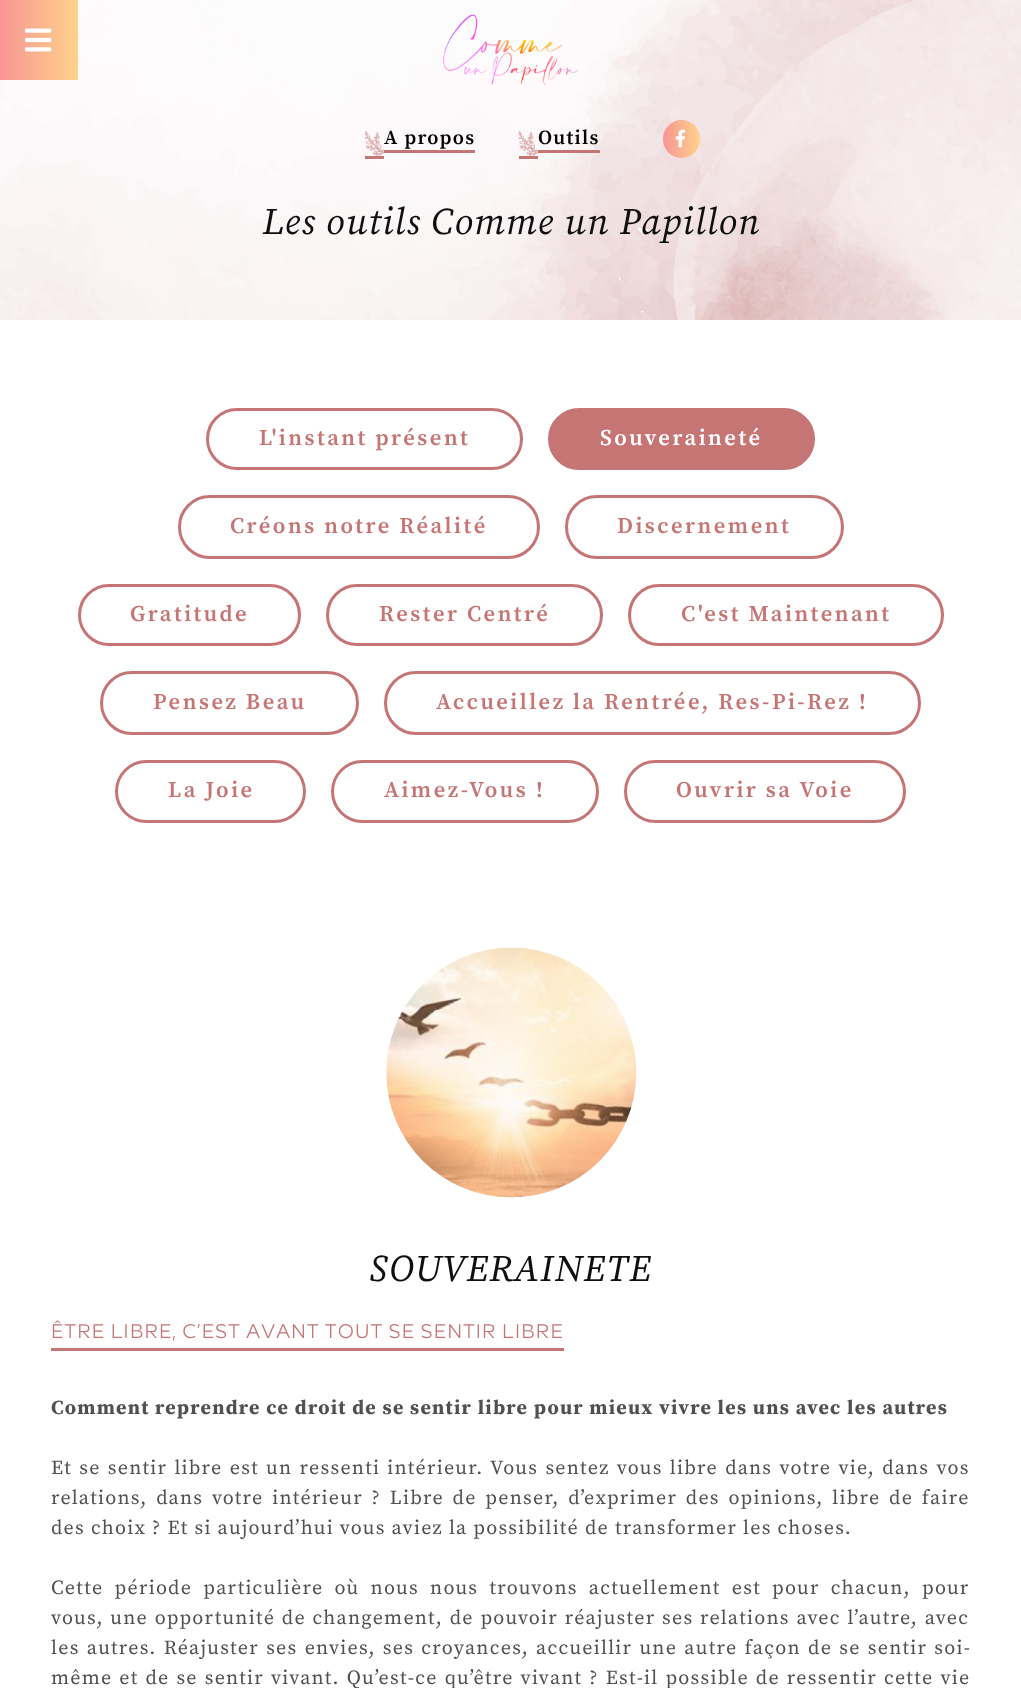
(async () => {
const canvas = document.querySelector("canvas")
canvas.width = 1021
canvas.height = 1688
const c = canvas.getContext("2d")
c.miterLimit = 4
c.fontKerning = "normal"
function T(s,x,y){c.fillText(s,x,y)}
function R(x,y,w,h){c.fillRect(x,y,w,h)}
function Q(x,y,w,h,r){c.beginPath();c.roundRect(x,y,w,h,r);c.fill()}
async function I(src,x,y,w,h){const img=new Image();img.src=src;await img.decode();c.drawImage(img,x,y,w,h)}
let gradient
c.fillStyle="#fff"
R(0,0,1021,1688)
await I("6.png",0,0,1021,320)
gradient = c.createLinearGradient(0,40,78,40)
gradient.addColorStop(0,"#f79595")
gradient.addColorStop(1,"#ffd289")
c.fillStyle = gradient
R(0,0,78,80)
await I("1.png",25,28,27,24)
await I("2.png",443,14,135,71)
c.fillStyle="#c67575"
R(365,156,19,3)
R(384,150,91,3)
await I("3.png",365,131,19,26)
c.letterSpacing="1.25px"
c.font="600 20px Source Serif Pro"
c.fillStyle="#000"
T("A propos",384,144)
c.fillStyle="#c67575"
R(519,156,19,3)
R(538,150,62,3)
await I("4.png",518,131,20,26)
c.fillStyle="#000"
T("Outils",538,144)
gradient = c.createLinearGradient(663,139,700,139)
gradient.addColorStop(0,"#f79595")
gradient.addColorStop(1,"#ffd289")
c.fillStyle = gradient
Q(663,120,37,38,18.5)
await I("5.png",675,129,11,19)
c.font="italic 37.5px Source Serif Pro"
c.fillStyle="#0f0f0f"
T("Les outils Comme un Papillon",262,234)
c.beginPath()
c.roundRect(207.5,409.5,314,59,29.5)
c.strokeStyle="#c67575"
c.lineWidth=3
c.stroke()
c.letterSpacing="2.5px"
c.font="600 22.5px Source Serif Pro"
c.fillStyle="#c67575"
T("L'instant présent",259,445)
c.beginPath()
c.roundRect(549.5,409.5,264,59,29.5)
c.fill()
c.stroke()
c.fillStyle="#fff"
T("Souveraineté",600,445)
c.beginPath()
c.roundRect(179.5,496.5,359,61,30.5)
c.stroke()
c.fillStyle="#c67575"
T("Créons notre Réalité",230,533)
c.beginPath()
c.roundRect(566.5,496.5,276,61,30.5)
c.stroke()
T("Discernement",617,533)
c.beginPath()
c.roundRect(79.5,585.5,220,59,29.5)
c.stroke()
T("Gratitude",130,621)
c.beginPath()
c.roundRect(327.5,585.5,274,59,29.5)
c.stroke()
T("Rester Centré",379,621)
c.beginPath()
c.roundRect(629.5,585.5,313,59,29.5)
c.stroke()
T("C'est Maintenant",681,621)
c.beginPath()
c.roundRect(101.5,672.5,256,61,30.5)
c.stroke()
T("Pensez Beau",153,709)
c.beginPath()
c.roundRect(385.5,672.5,534,61,30.5)
c.stroke()
T("Accueillez la Rentrée, Res-Pi-Rez !",436,709)
c.beginPath()
c.roundRect(116.5,761.5,188,60,30)
c.stroke()
T("La Joie",168,797)
c.beginPath()
c.roundRect(332.5,761.5,265,60,30)
c.stroke()
T("Aimez-Vous !",384,797)
c.beginPath()
c.roundRect(625.5,761.5,279,60,30)
c.stroke()
T("Ouvrir sa Voie",676,797)
await I("7.png",386,947,251,251)
c.letterSpacing="1.25px"
c.font="italic 37.5px Source Serif Pro"
c.fillStyle="#0f0f0f"
T("SOUVERAINETE",369,1281)
c.fillStyle="#c67575"
R(51,1348,513,3)
c.font="20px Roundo"
T("ÊTRE LIBRE, C’EST AVANT TOUT SE SENTIR LIBRE",51,1338)
c.font="bold 20px Source Serif Pro"
c.fillStyle="#505050"
T("Comment reprendre ce droit de se sentir libre pour mieux vivre les uns avec les autres",51,1414)
c.wordSpacing="1.3px"
c.font="20px Source Serif Pro"
T("Et se sentir libre est un ressenti intérieur. Vous sentez vous libre dans votre vie, dans vos",51,1474)
c.wordSpacing="2.75px"
T("relations, dans votre intérieur ? Libre de penser, d’exprimer des opinions, libre de faire",51,1504)
c.wordSpacing="0px"
T("des choix ? Et si aujourd’hui vous aviez la possibilité de transformer les choses.",51,1534)
c.wordSpacing="5.25px"
T("Cette période particulière où nous nous trouvons actuellement est pour chacun, pour",51,1594)
c.wordSpacing="0.75px"
T("vous, une opportunité de changement, de pouvoir réajuster ses relations avec l’autre, avec",51,1624)
c.wordSpacing="1.25px"
T("les autres. Réajuster ses envies, ses croyances, accueillir une autre façon de se sentir soi-",51,1654)
c.wordSpacing="1px"
T("même et de se sentir vivant. Qu’est-ce qu’être vivant ? Est-il possible de ressentir cette vie",51,1684)
})()
